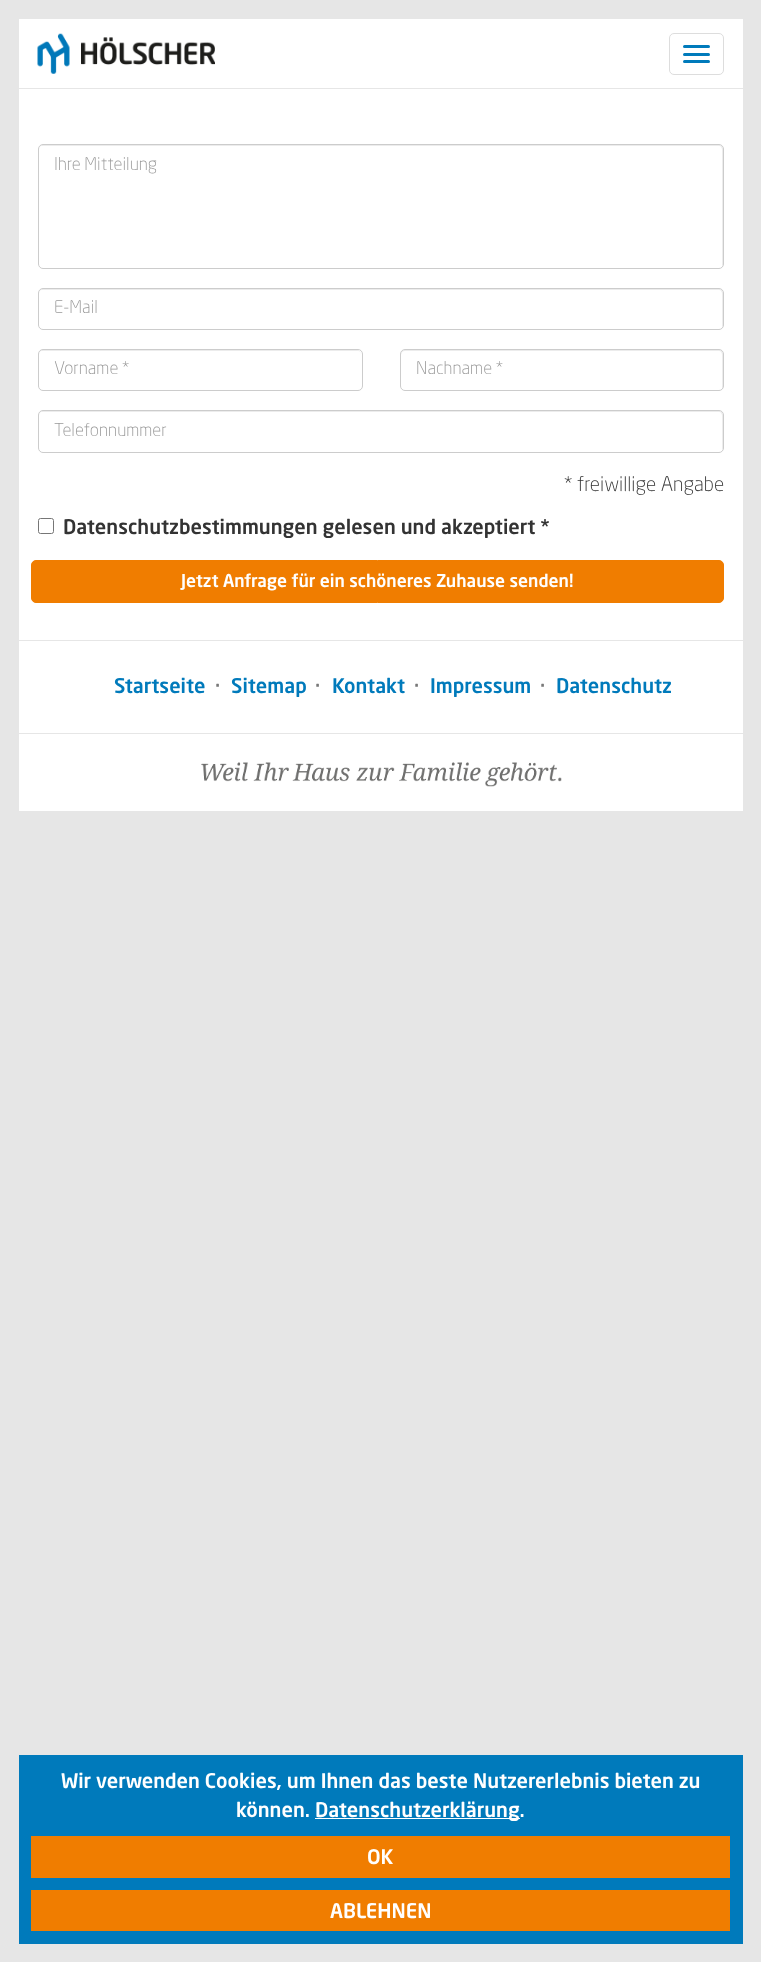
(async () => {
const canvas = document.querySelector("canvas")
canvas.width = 761
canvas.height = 1962
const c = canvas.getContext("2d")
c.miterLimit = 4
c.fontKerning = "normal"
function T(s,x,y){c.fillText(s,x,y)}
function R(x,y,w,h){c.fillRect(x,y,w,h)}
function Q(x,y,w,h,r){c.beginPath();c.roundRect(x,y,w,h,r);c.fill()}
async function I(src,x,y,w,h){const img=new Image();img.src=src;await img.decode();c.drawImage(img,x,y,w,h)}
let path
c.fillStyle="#e6e6e6"
R(0,0,761,1962)
c.fillStyle="#fff"
R(19,19,724,69)
await I("1.png",37,33,178,41)
c.beginPath()
c.roundRect(669.5,33.5,54,41,4.5)
c.strokeStyle="#ddd"
c.stroke()
c.fillStyle="#007abb"
Q(683,45,27,3,1.5)
Q(683,53,27,3,1.5)
Q(683,60,27,3,1.5)
c.fillStyle="#fff"
R(19,89,724,551)
c.fillStyle="#ececec"
path = new Path2D("M42 146h677c2 0 3 2 3 4v115v2c0-1 1-2 1-3v-115c0-2-2-4-4-4h-676c-2 0-4 2-4 4v1c0-2 1-4 3-4z")
c.fill(path)
c.beginPath()
c.roundRect(38.5,144.5,685,124,4.5)
c.strokeStyle="#ccc"
c.stroke()
c.font="300 17.5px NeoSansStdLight"
c.fillStyle="#999"
T("Ihre Mitteilung",54,170)
c.fillStyle="#ececec"
path = new Path2D("M42 290h677c2 0 3 2 3 4v34c0-1 1-2 1-3v-32c0-2-2-4-4-4h-676c-2 0-4 2-4 4v1c0-2 1-4 3-4z")
c.fill(path)
c.beginPath()
c.roundRect(38.5,288.5,685,41,4.5)
c.stroke()
c.fillStyle="#999"
T("E-Mail",54,313)
c.fillStyle="#ececec"
path = new Path2D("M42 351h316c2 0 3 2 3 4v-1c0-2-2-4-4-4h-314c-2 0-4 2-4 4v1c0-2 1-4 3-4z")
c.fill(path)
c.beginPath()
c.roundRect(38.5,349.5,324,41,4.5)
c.stroke()
c.fillStyle="#999"
T("Vorname *",54,374)
c.fillStyle="#ececec"
path = new Path2D("M405 351h314c2 0 3 2 3 4v34c1-1 1-2 1-3v-32c0-2-2-4-4-4h-314c-2 0-4 2-4 4v1c0-2 2-4 4-4z")
c.fill(path)
c.beginPath()
c.roundRect(400.5,349.5,323,41,4.5)
c.stroke()
c.fillStyle="#999"
T("Nachname *",416,374)
c.fillStyle="#ececec"
path = new Path2D("M42 412h677c2 0 3 2 3 4v34c1-1 1-2 1-3v-32c0-2-2-4-4-4h-676c-2 0-4 2-4 4v1c0-2 1-4 3-4z")
c.fill(path)
c.beginPath()
c.roundRect(38.5,410.5,685,42,4.5)
c.stroke()
c.fillStyle="#999"
T("Telefonnummer",54,436)
c.font="300 20px NeoSansStdLight"
c.fillStyle="#333"
T("* freiwillige Angabe",564,491)
c.beginPath()
c.roundRect(38.5,518.5,15,15,2)
c.strokeStyle="#767676"
c.stroke()
c.font="500 20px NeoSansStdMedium"
T("Datenschutzbestimmungen gelesen und akzeptiert *",63,534)
c.fillStyle="#f07d00"
c.beginPath()
c.roundRect(31.5,560.5,692,42,4.5)
c.fill()
c.strokeStyle="#f07d00"
c.stroke()
c.font="500 17.5px NeoSansStdMedium"
c.fillStyle="#fff"
T("Jetzt Anfrage für ein schöneres Zuhause senden!",181,587)
R(19,641,724,170)
c.font="500 20px NeoSansStdMedium"
c.fillStyle="#007abb"
T("Startseite",114,693)
c.fillStyle="#787878"
T("·",215,693)
c.fillStyle="#007abb"
T("Sitemap",231,693)
c.fillStyle="#787878"
T("·",315,693)
c.fillStyle="#007abb"
T("Kontakt",332,693)
c.fillStyle="#787878"
T("·",414,693)
c.fillStyle="#007abb"
T("Impressum",430,693)
c.fillStyle="#787878"
T("·",540,693)
c.fillStyle="#007abb"
T("Datenschutz",556,693)
c.fillStyle="#e6e6e6"
R(19,733,724,1)
await I("2.png",201,762,361,25)
c.fillStyle="#007abb"
R(19,1755,724,189)
c.fillStyle="#fff"
T("Wir verwenden Cookies, um Ihnen das beste Nutzererlebnis bieten zu",61,1788)
T("können.",236,1817)
R(315,1818,205,1)
T("Datenschutzerklärung.",315,1817)
c.fillStyle="#f07d00"
R(31,1836,699,42)
c.fillStyle="#fff"
T("OK",367,1864)
c.fillStyle="#f07d00"
R(31,1890,699,41)
c.fillStyle="#fff"
T("ABLEHNEN",330,1918)
})()
